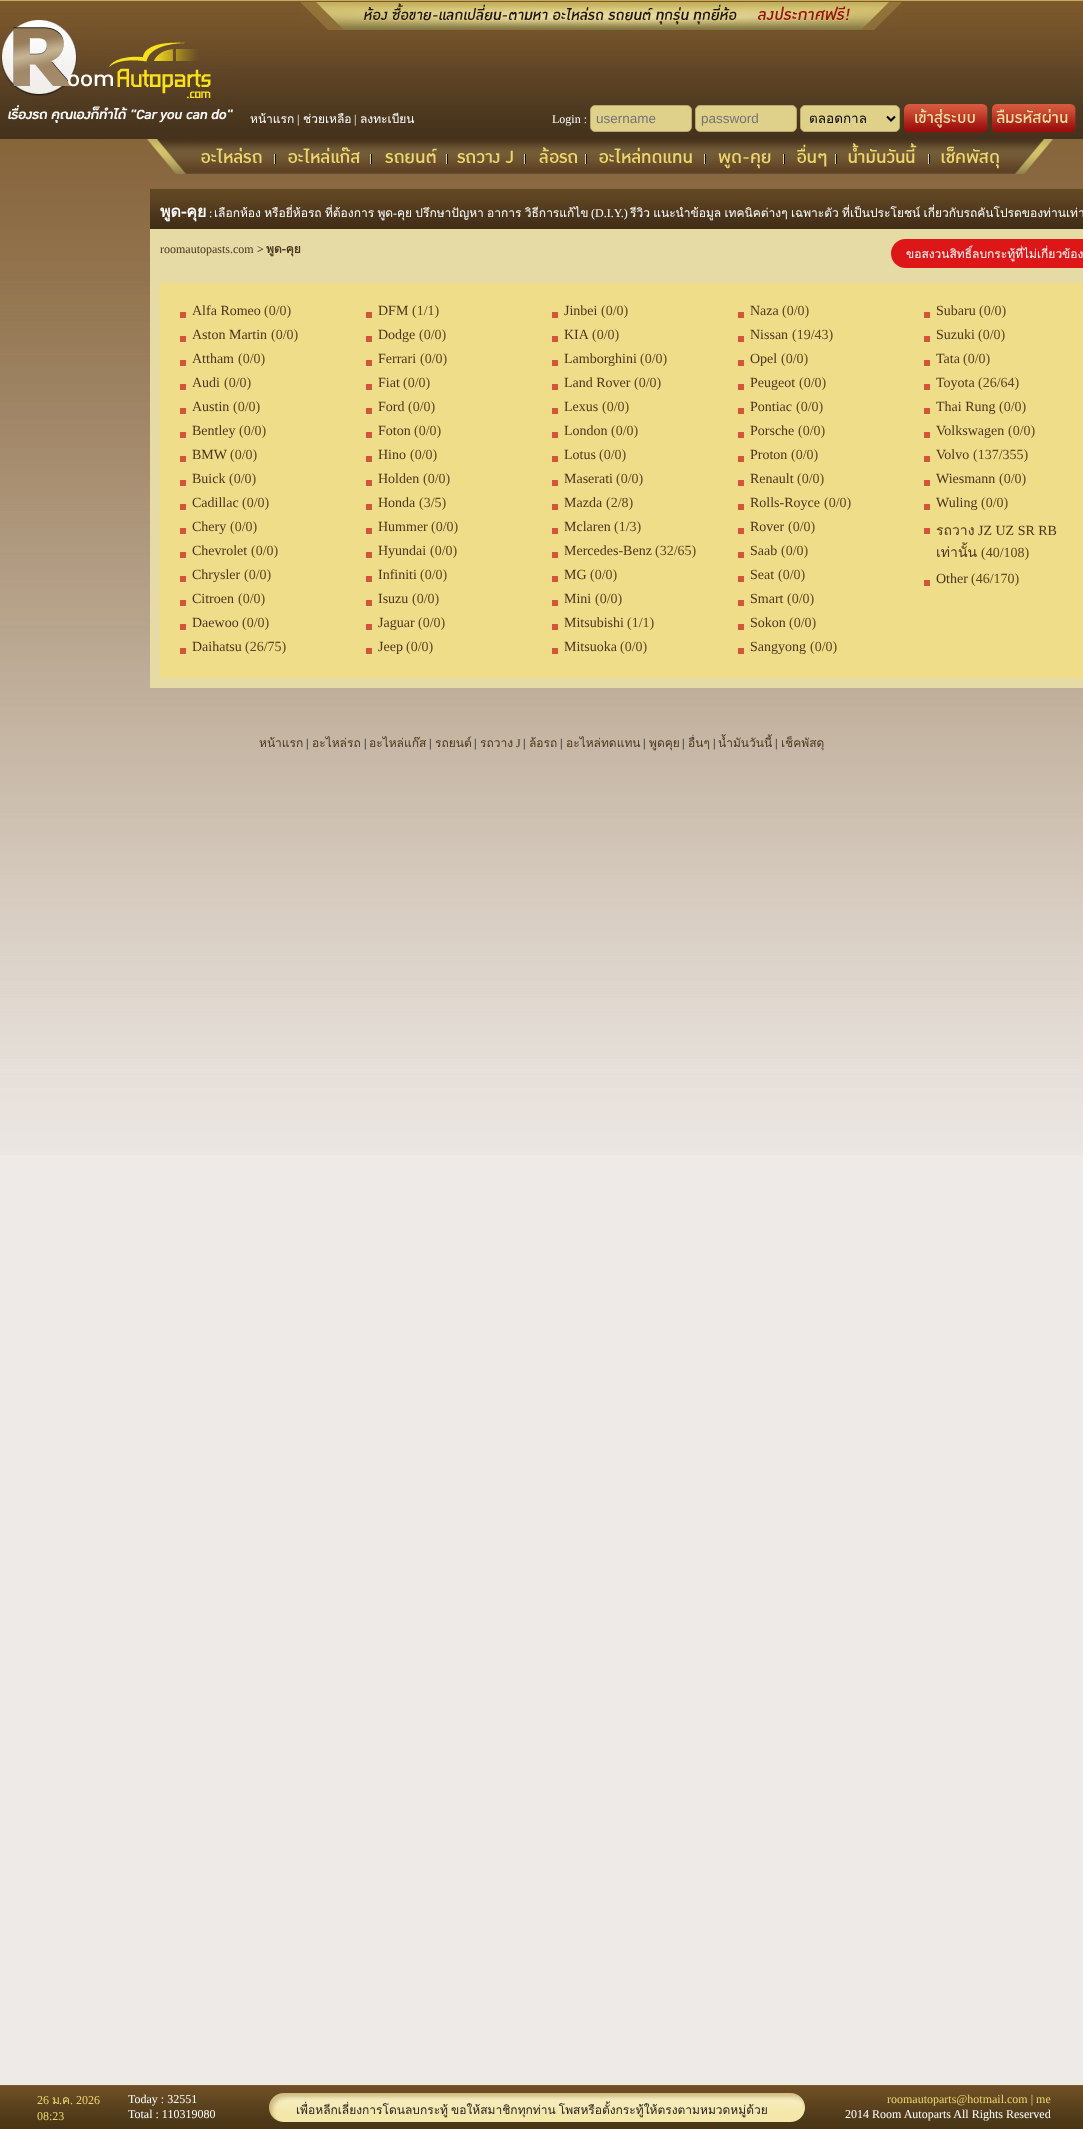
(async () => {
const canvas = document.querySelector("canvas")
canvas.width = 1083
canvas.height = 2129
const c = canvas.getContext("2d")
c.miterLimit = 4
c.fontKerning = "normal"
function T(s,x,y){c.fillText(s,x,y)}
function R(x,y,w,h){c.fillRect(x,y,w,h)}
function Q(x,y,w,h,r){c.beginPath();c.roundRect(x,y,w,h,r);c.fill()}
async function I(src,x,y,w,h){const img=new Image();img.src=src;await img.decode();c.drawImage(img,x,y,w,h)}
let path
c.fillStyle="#eeeae7"
R(0,0,1083,2129)
await I("1.png",0,0,1083,1155)
await I("2.png",300,2,602,28)
await I("3.png",0,17,238,122)
c.font="12px Loma"
c.fillStyle="#fff"
T("หน้าแรก",250,123)
c.font="12px Liberation Serif"
T("|",297,123)
c.font="12px Loma"
T("ช่วยเหลือ",303,123)
c.font="12px Liberation Serif"
T("|",354,123)
c.font="12px Loma"
T("ลงทะเบียน",360,123)
c.font="12px Liberation Serif"
T("Login :",552,123)
c.fillStyle="#dfd18a"
c.beginPath()
c.roundRect(590.5,105.5,101,26,4.5)
c.fill()
c.strokeStyle="#b7a86d"
c.stroke()
c.font="13.5px Liberation Sans"
c.fillStyle="#757575"
T("username",596,123)
c.fillStyle="#dfd18a"
c.beginPath()
c.roundRect(695.5,105.5,101,26,4.5)
c.fill()
c.stroke()
c.fillStyle="#757575"
T("password",701,123)
c.fillStyle="#dfd18a"
c.beginPath()
c.roundRect(800.5,105.5,99,26,4.5)
c.fill()
c.stroke()
path = new Path2D("M887 116.5l4 4l4-4")
c.strokeStyle="#000"
c.lineWidth=2
c.stroke(path)
c.font="13.5px Loma"
c.fillStyle="#000"
T("ตลอดกาล",809,123)
await I("4.png",904,104,84,29)
await I("5.png",992,104,84,29)
await I("6.png",147,139,906,35)
await I("7.png",201,147,61,16)
await I("8.png",274,147,86,17)
await I("9.png",370,148,67,16)
await I("10.png",446,150,67,14)
await I("11.png",524,147,53,17)
await I("12.png",585,147,107,17)
await I("13.png",704,153,67,16)
await I("14.png",783,144,44,23)
await I("15.png",835,143,82,21)
await I("16.png",928,146,71,23)
await I("17.png",150,189,933,40)
c.font="bold 16px Loma"
c.fillStyle="#fff"
T("พูด-คุย",160,217)
c.font="12px Liberation Serif"
T(":",209,217)
c.wordSpacing="-0.75px"
c.font="12px Loma"
T("เลือกห้อง หรือยี่ห้อรถ ที่ต้องการ พูด",214,217)
c.wordSpacing="0px"
c.font="12px Liberation Serif"
T("-",393,217)
c.wordSpacing="-0.75px"
c.font="12px Loma"
T("คุย ปรึกษาปัญหา อาการ วิธีการแก้ไข",397,217)
c.wordSpacing="0px"
c.font="12px Liberation Serif"
T("(D.I.Y.)",591,217)
c.wordSpacing="-0.75px"
c.font="12px Loma"
T("รีวิว แนะนำข้อมูล เทคนิคต่างๆ เฉพาะตัว ที่เป็นประโยชน์ เกี่ยวกับรถคันโปรดของท่านเท่า",630,217)
c.fillStyle="#e6dba5"
R(150,229,933,459)
c.wordSpacing="0px"
c.font="12px Liberation Serif"
c.fillStyle="#4b351d"
T("roomautopasts.com",160,253)
c.fillStyle="#000"
T(">",257,253)
c.font="bold 12px Loma"
c.fillStyle="#4b351d"
T("พูด-คุย",266,253)
c.fillStyle="#dd1718"
Q(891,239,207,29,14.5)
c.font="12px Loma"
c.fillStyle="#fff"
T("ขอสงวนสิทธิ์ลบกระทู้ที่ไม่เกี่ยวข้อง",906,258)
c.fillStyle="#efdd89"
R(160,283,923,395)
await I("18.png",180,312,6,6)
c.font="14px Liberation Serif"
c.fillStyle="#4b351d"
T("Alfa Romeo",192,315)
c.fillStyle="#604621"
T("(0/0)",264,315)
await I("18.png",180,336,6,6)
c.fillStyle="#4b351d"
T("Aston Martin",192,339)
c.fillStyle="#604621"
T("(0/0)",271,339)
await I("18.png",180,360,6,6)
c.fillStyle="#4b351d"
T("Attham",192,363)
c.fillStyle="#604621"
T("(0/0)",238,363)
await I("18.png",180,384,6,6)
c.fillStyle="#4b351d"
T("Audi",192,387)
c.fillStyle="#604621"
T("(0/0)",224,387)
await I("18.png",180,408,6,6)
c.fillStyle="#4b351d"
T("Austin",192,411)
c.fillStyle="#604621"
T("(0/0)",233,411)
await I("18.png",180,432,6,6)
c.fillStyle="#4b351d"
T("Bentley",192,435)
c.fillStyle="#604621"
T("(0/0)",239,435)
await I("18.png",180,456,6,6)
c.fillStyle="#4b351d"
T("BMW",192,459)
c.fillStyle="#604621"
T("(0/0)",230,459)
await I("18.png",180,480,6,6)
c.fillStyle="#4b351d"
T("Buick",192,483)
c.fillStyle="#604621"
T("(0/0)",229,483)
await I("18.png",180,504,6,6)
c.fillStyle="#4b351d"
T("Cadillac",192,507)
c.fillStyle="#604621"
T("(0/0)",242,507)
await I("18.png",180,528,6,6)
c.fillStyle="#4b351d"
T("Chery",192,531)
c.fillStyle="#604621"
T("(0/0)",230,531)
await I("18.png",180,552,6,6)
c.fillStyle="#4b351d"
T("Chevrolet",192,555)
c.fillStyle="#604621"
T("(0/0)",251,555)
await I("18.png",180,576,6,6)
c.fillStyle="#4b351d"
T("Chrysler",192,579)
c.fillStyle="#604621"
T("(0/0)",244,579)
await I("18.png",180,600,6,6)
c.fillStyle="#4b351d"
T("Citroen",192,603)
c.fillStyle="#604621"
T("(0/0)",238,603)
await I("18.png",180,624,6,6)
c.fillStyle="#4b351d"
T("Daewoo",192,627)
c.fillStyle="#604621"
T("(0/0)",242,627)
await I("18.png",180,648,6,6)
c.fillStyle="#4b351d"
T("Daihatsu",192,651)
c.fillStyle="#604621"
T("(26/75)",245,651)
await I("18.png",366,312,6,6)
c.fillStyle="#4b351d"
T("DFM",378,315)
c.fillStyle="#604621"
T("(1/1)",412,315)
await I("18.png",366,336,6,6)
c.fillStyle="#4b351d"
T("Dodge",378,339)
c.fillStyle="#604621"
T("(0/0)",419,339)
await I("18.png",366,360,6,6)
c.fillStyle="#4b351d"
T("Ferrari",378,363)
c.fillStyle="#604621"
T("(0/0)",420,363)
await I("18.png",366,384,6,6)
c.fillStyle="#4b351d"
T("Fiat",378,387)
c.fillStyle="#604621"
T("(0/0)",403,387)
await I("18.png",366,408,6,6)
c.fillStyle="#4b351d"
T("Ford",378,411)
c.fillStyle="#604621"
T("(0/0)",408,411)
await I("18.png",366,432,6,6)
c.fillStyle="#4b351d"
T("Foton",378,435)
c.fillStyle="#604621"
T("(0/0)",414,435)
await I("18.png",366,456,6,6)
c.fillStyle="#4b351d"
T("Hino",378,459)
c.fillStyle="#604621"
T("(0/0)",410,459)
await I("18.png",366,480,6,6)
c.fillStyle="#4b351d"
T("Holden",378,483)
c.fillStyle="#604621"
T("(0/0)",423,483)
await I("18.png",366,504,6,6)
c.fillStyle="#4b351d"
T("Honda",378,507)
c.fillStyle="#604621"
T("(3/5)",419,507)
await I("18.png",366,528,6,6)
c.fillStyle="#4b351d"
T("Hummer",378,531)
c.fillStyle="#604621"
T("(0/0)",431,531)
await I("18.png",366,552,6,6)
c.fillStyle="#4b351d"
T("Hyundai",378,555)
c.fillStyle="#604621"
T("(0/0)",430,555)
await I("18.png",366,576,6,6)
c.fillStyle="#4b351d"
T("Infiniti",378,579)
c.fillStyle="#604621"
T("(0/0)",420,579)
await I("18.png",366,600,6,6)
c.fillStyle="#4b351d"
T("Isuzu",378,603)
c.fillStyle="#604621"
T("(0/0)",412,603)
await I("18.png",366,624,6,6)
c.fillStyle="#4b351d"
T("Jaguar",378,627)
c.fillStyle="#604621"
T("(0/0)",418,627)
await I("18.png",366,648,6,6)
c.fillStyle="#4b351d"
T("Jeep",378,651)
c.fillStyle="#604621"
T("(0/0)",406,651)
await I("18.png",552,312,6,6)
c.fillStyle="#4b351d"
T("Jinbei",564,315)
c.fillStyle="#604621"
T("(0/0)",601,315)
await I("18.png",552,336,6,6)
c.fillStyle="#4b351d"
T("KIA",564,339)
c.fillStyle="#604621"
T("(0/0)",592,339)
await I("18.png",552,360,6,6)
c.fillStyle="#4b351d"
T("Lamborghini",564,363)
c.fillStyle="#604621"
T("(0/0)",640,363)
await I("18.png",552,384,6,6)
c.fillStyle="#4b351d"
T("Land Rover",564,387)
c.fillStyle="#604621"
T("(0/0)",634,387)
await I("18.png",552,408,6,6)
c.fillStyle="#4b351d"
T("Lexus",564,411)
c.fillStyle="#604621"
T("(0/0)",602,411)
await I("18.png",552,432,6,6)
c.fillStyle="#4b351d"
T("London",564,435)
c.fillStyle="#604621"
T("(0/0)",611,435)
await I("18.png",552,456,6,6)
c.fillStyle="#4b351d"
T("Lotus",564,459)
c.fillStyle="#604621"
T("(0/0)",599,459)
await I("18.png",552,480,6,6)
c.fillStyle="#4b351d"
T("Maserati",564,483)
c.fillStyle="#604621"
T("(0/0)",616,483)
await I("18.png",552,504,6,6)
c.fillStyle="#4b351d"
T("Mazda",564,507)
c.fillStyle="#604621"
T("(2/8)",606,507)
await I("18.png",552,528,6,6)
c.fillStyle="#4b351d"
T("Mclaren",564,531)
c.fillStyle="#604621"
T("(1/3)",614,531)
await I("18.png",552,552,6,6)
c.fillStyle="#4b351d"
T("Mercedes-Benz",564,555)
c.fillStyle="#604621"
T("(32/65)",655,555)
await I("18.png",552,576,6,6)
c.fillStyle="#4b351d"
T("MG",564,579)
c.fillStyle="#604621"
T("(0/0)",590,579)
await I("18.png",552,600,6,6)
c.fillStyle="#4b351d"
T("Mini",564,603)
c.fillStyle="#604621"
T("(0/0)",595,603)
await I("18.png",552,624,6,6)
c.fillStyle="#4b351d"
T("Mitsubishi",564,627)
c.fillStyle="#604621"
T("(1/1)",627,627)
await I("18.png",552,648,6,6)
c.fillStyle="#4b351d"
T("Mitsuoka",564,651)
c.fillStyle="#604621"
T("(0/0)",620,651)
await I("18.png",738,312,6,6)
c.fillStyle="#4b351d"
T("Naza",750,315)
c.fillStyle="#604621"
T("(0/0)",782,315)
await I("18.png",738,336,6,6)
c.fillStyle="#4b351d"
T("Nissan",750,339)
c.fillStyle="#604621"
T("(19/43)",792,339)
await I("18.png",738,360,6,6)
c.fillStyle="#4b351d"
T("Opel",750,363)
c.fillStyle="#604621"
T("(0/0)",781,363)
await I("18.png",738,384,6,6)
c.fillStyle="#4b351d"
T("Peugeot",750,387)
c.fillStyle="#604621"
T("(0/0)",799,387)
await I("18.png",738,408,6,6)
c.fillStyle="#4b351d"
T("Pontiac",750,411)
c.fillStyle="#604621"
T("(0/0)",796,411)
await I("18.png",738,432,6,6)
c.fillStyle="#4b351d"
T("Porsche",750,435)
c.fillStyle="#604621"
T("(0/0)",798,435)
await I("18.png",738,456,6,6)
c.fillStyle="#4b351d"
T("Proton",750,459)
c.fillStyle="#604621"
T("(0/0)",791,459)
await I("18.png",738,480,6,6)
c.fillStyle="#4b351d"
T("Renault",750,483)
c.fillStyle="#604621"
T("(0/0)",797,483)
await I("18.png",738,504,6,6)
c.fillStyle="#4b351d"
T("Rolls-Royce",750,507)
c.fillStyle="#604621"
T("(0/0)",824,507)
await I("18.png",738,528,6,6)
c.fillStyle="#4b351d"
T("Rover",750,531)
c.fillStyle="#604621"
T("(0/0)",788,531)
await I("18.png",738,552,6,6)
c.fillStyle="#4b351d"
T("Saab",750,555)
c.fillStyle="#604621"
T("(0/0)",781,555)
await I("18.png",738,576,6,6)
c.fillStyle="#4b351d"
T("Seat",750,579)
c.fillStyle="#604621"
T("(0/0)",778,579)
await I("18.png",738,600,6,6)
c.fillStyle="#4b351d"
T("Smart",750,603)
c.fillStyle="#604621"
T("(0/0)",787,603)
await I("18.png",738,624,6,6)
c.fillStyle="#4b351d"
T("Sokon",750,627)
c.fillStyle="#604621"
T("(0/0)",789,627)
await I("18.png",738,648,6,6)
c.fillStyle="#4b351d"
T("Sangyong",750,651)
c.fillStyle="#604621"
T("(0/0)",810,651)
await I("18.png",924,312,6,6)
c.fillStyle="#4b351d"
T("Subaru",936,315)
c.fillStyle="#604621"
T("(0/0)",979,315)
await I("18.png",924,336,6,6)
c.fillStyle="#4b351d"
T("Suzuki",936,339)
c.fillStyle="#604621"
T("(0/0)",978,339)
await I("18.png",924,360,6,6)
c.fillStyle="#4b351d"
T("Tata",936,363)
c.fillStyle="#604621"
T("(0/0)",963,363)
await I("18.png",924,384,6,6)
c.fillStyle="#4b351d"
T("Toyota",936,387)
c.fillStyle="#604621"
T("(26/64)",978,387)
await I("18.png",924,408,6,6)
c.fillStyle="#4b351d"
T("Thai Rung",936,411)
c.fillStyle="#604621"
T("(0/0)",999,411)
await I("18.png",924,432,6,6)
c.fillStyle="#4b351d"
T("Volkswagen",936,435)
c.fillStyle="#604621"
T("(0/0)",1008,435)
await I("18.png",924,456,6,6)
c.fillStyle="#4b351d"
T("Volvo",936,459)
c.fillStyle="#604621"
T("(137/355)",973,459)
await I("18.png",924,480,6,6)
c.fillStyle="#4b351d"
T("Wiesmann",936,483)
c.fillStyle="#604621"
T("(0/0)",999,483)
await I("18.png",924,504,6,6)
c.fillStyle="#4b351d"
T("Wuling",936,507)
c.fillStyle="#604621"
T("(0/0)",981,507)
await I("18.png",924,528,6,6)
c.font="14px Loma"
c.fillStyle="#4b351d"
T("รถวาง",936,535)
c.font="14px Liberation Serif"
T("JZ UZ SR RB",978,535)
c.font="14px Loma"
T("เท่านั้น",936,557)
c.font="14px Liberation Serif"
c.fillStyle="#604621"
T("(40/108)",981,557)
await I("18.png",924,580,6,6)
c.fillStyle="#4b351d"
T("Other",936,583)
c.fillStyle="#604621"
T("(46/170)",971,583)
c.font="12px Loma"
c.fillStyle="#4b351d"
T("หน้าแรก",259,747)
c.font="12px Liberation Serif"
c.fillStyle="#000"
T("|",306,747)
c.font="12px Loma"
c.fillStyle="#4b351d"
T("อะไหล่รถ",312,747)
c.font="12px Liberation Serif"
c.fillStyle="#000"
T("|",364,747)
c.font="12px Loma"
c.fillStyle="#4b351d"
T("อะไหล่แก๊ส",369,747)
c.font="12px Liberation Serif"
c.fillStyle="#000"
T("|",429,747)
c.font="12px Loma"
c.fillStyle="#4b351d"
T("รถยนต์",435,747)
c.font="12px Liberation Serif"
c.fillStyle="#000"
T("|",474,747)
T("|",523,747)
c.font="12px Loma"
c.fillStyle="#4b351d"
T("ล้อรถ",529,747)
T("อะไหล่ทดแทน",566,747)
c.font="12px Liberation Serif"
c.fillStyle="#000"
T("|",682,747)
c.font="12px Loma"
c.fillStyle="#4b351d"
T("อื่นๆ",688,747)
c.font="12px Liberation Serif"
c.fillStyle="#000"
T("|",713,747)
c.font="12px Loma"
c.fillStyle="#4b351d"
T("น้ำมันวันนี้",718,747)
T("เช็คพัสดุ",781,747)
T("รถวาง",480,747)
c.font="12px Liberation Serif"
T("J",516,747)
c.fillStyle="#000"
T("|",560,747)
T("|",643,747)
T("|",775,747)
c.font="12px Loma"
c.fillStyle="#4b351d"
T("พูดคุย",649,747)
await I("19.png",0,2085,1083,44)
c.font="12px Liberation Serif"
c.fillStyle="#ecd56b"
T("26",37,2104)
c.font="12px Loma"
T("ม",52,2104)
c.font="12px Liberation Serif"
T(".",59,2104)
c.font="12px Loma"
T("ค",62,2104)
c.font="12px Liberation Serif"
T(". 2026",70,2104)
T("08:23",37,2120)
c.fillStyle="#fff"
T("Today : 32551",128,2103)
T("Total : 110319080",128,2118)
await I("20.png",269,2093,47,29)
await I("21.png",766,2093,39,29)
await I("22.png",316,2093,450,29)
c.wordSpacing="-1px"
c.font="12px Loma"
c.fillStyle="#222"
T("เพื่อหลีกเลี่ยงการโดนลบกระทู้ ขอให้สมาชิกทุกท่าน โพสหรือตั้งกระทู้ให้ตรงตามหมวดหมู่ด้วย",296,2114)
c.wordSpacing="0px"
c.font="12px Liberation Serif"
c.fillStyle="#ecd56b"
T("roomautoparts@hotmail.com | me",887,2103)
c.fillStyle="#fff"
T("2014 Room Autoparts All Rights Reserved",845,2118)
})()
